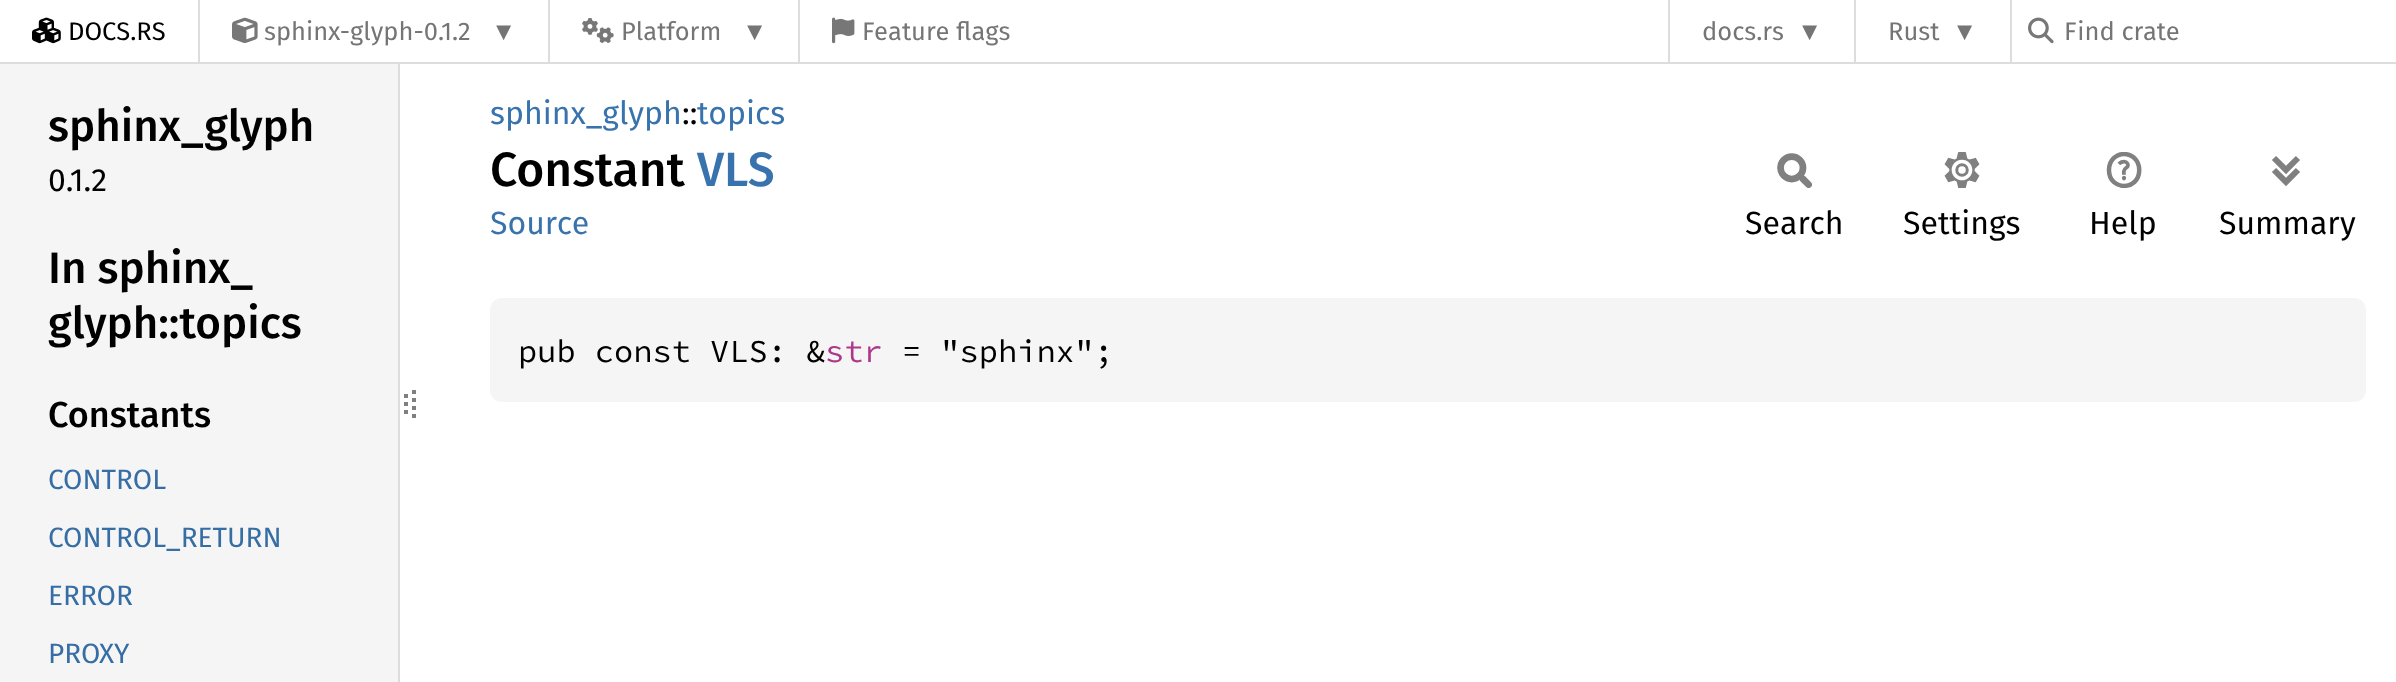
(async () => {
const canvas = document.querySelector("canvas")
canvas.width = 2396
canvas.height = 682
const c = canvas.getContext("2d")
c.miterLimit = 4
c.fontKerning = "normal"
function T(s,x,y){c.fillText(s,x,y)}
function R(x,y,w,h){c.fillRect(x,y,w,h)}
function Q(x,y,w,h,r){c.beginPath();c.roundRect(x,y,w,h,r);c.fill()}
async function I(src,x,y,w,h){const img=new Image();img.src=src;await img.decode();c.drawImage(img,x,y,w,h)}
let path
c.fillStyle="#fff"
R(0,0,2396,682)
c.fillStyle="#ddd"
R(0,62,2396,2)
await I("1.png",32,17,29,27)
c.font="25.5px Fira Sans"
c.fillStyle="#000"
T("DOCS.RS",68,40)
c.fillStyle="#ddd"
R(198,0,2,62)
await I("2.png",232,17,26,27)
c.fillStyle="#757575"
T("sphinx-glyph-0.1.2",264,40)
c.font="25.5px Liberation Sans"
T("▼",491,40)
c.fillStyle="#ddd"
R(548,0,2,62)
await I("3.png",582,18,32,25)
c.font="25.5px Fira Sans"
c.fillStyle="#757575"
T("Platform",621,40)
c.font="25.5px Liberation Sans"
T("▼",742,40)
c.fillStyle="#ddd"
R(798,0,2,62)
await I("4.png",832,17,23,27)
c.font="25.5px Fira Sans"
c.fillStyle="#757575"
T("Feature flags",862,40)
c.fillStyle="#ddd"
R(1668,0,2,62)
c.fillStyle="#757575"
T("docs.rs",1702,40)
c.font="25.5px Liberation Sans"
T("▼",1797,40)
c.fillStyle="#ddd"
R(1854,0,2,62)
c.font="25.5px Fira Sans"
c.fillStyle="#757575"
T("Rust",1888,40)
c.font="25.5px Liberation Sans"
T("▼",1952,40)
c.fillStyle="#ddd"
R(2010,0,2,62)
await I("5.png",2028,17,26,27)
c.font="25.5px Fira Sans"
c.fillStyle="#757575"
T("Find crate",2064,40)
c.fillStyle="#f5f5f5"
R(0,64,398,618)
c.fillStyle="#ddd"
R(398,64,2,618)
c.font="500 44px Fira Sans"
c.fillStyle="#000"
T("sphinx_glyph",48,141)
c.font="32px Fira Sans"
T("0.1.2",48,191)
c.font="500 44px Fira Sans"
T("In sphinx_",48,283)
T("glyph::topics",48,338)
c.font="500 36px Fira Sans"
T("Constants",48,427)
c.font="28px Fira Sans"
c.fillStyle="#356da4"
T("CONTROL",48,489)
T("CONTROL_RETURN",48,547)
T("ERROR",48,605)
T("PROXY",48,663)
path = new Path2D("M406 394v4m0 4v4m0 4v4")
c.strokeStyle="#808080"
c.lineWidth=4
c.stroke(path)
path = new Path2D("M414 390v32")
c.setLineDash([4,4])
c.stroke(path)
c.font="32px Fira Sans"
c.fillStyle="#3873ad"
T("sphinx_glyph",490,124)
c.fillStyle="#000"
T("::",682,124)
c.fillStyle="#3873ad"
T("topics",697,124)
c.font="500 48px Fira Sans"
c.fillStyle="#000"
T("Constant",490,186)
c.fillStyle="#3873ad"
T("VLS",697,186)
c.font="32px Fira Sans"
T("Source",490,234)
await I("6.png",1777,153,35,35)
c.fillStyle="#000"
T("Search",1745,234)
await I("7.png",1944,152,36,36)
T("Settings",1903,234)
await I("8.png",2106,152,36,36)
T("Help",2089,234)
await I("9.png",2272,156,28,30)
T("Summary",2219,234)
c.fillStyle="#f5f5f5"
Q(490,298,1876,104,12)
c.font="32px Source Code Pro"
c.fillStyle="#000"
T("pub const VLS: &",518,362)
c.fillStyle="#ad378a"
T("str",825,362)
c.fillStyle="#000"
T("= \"sphinx\";",902,362)
})()
